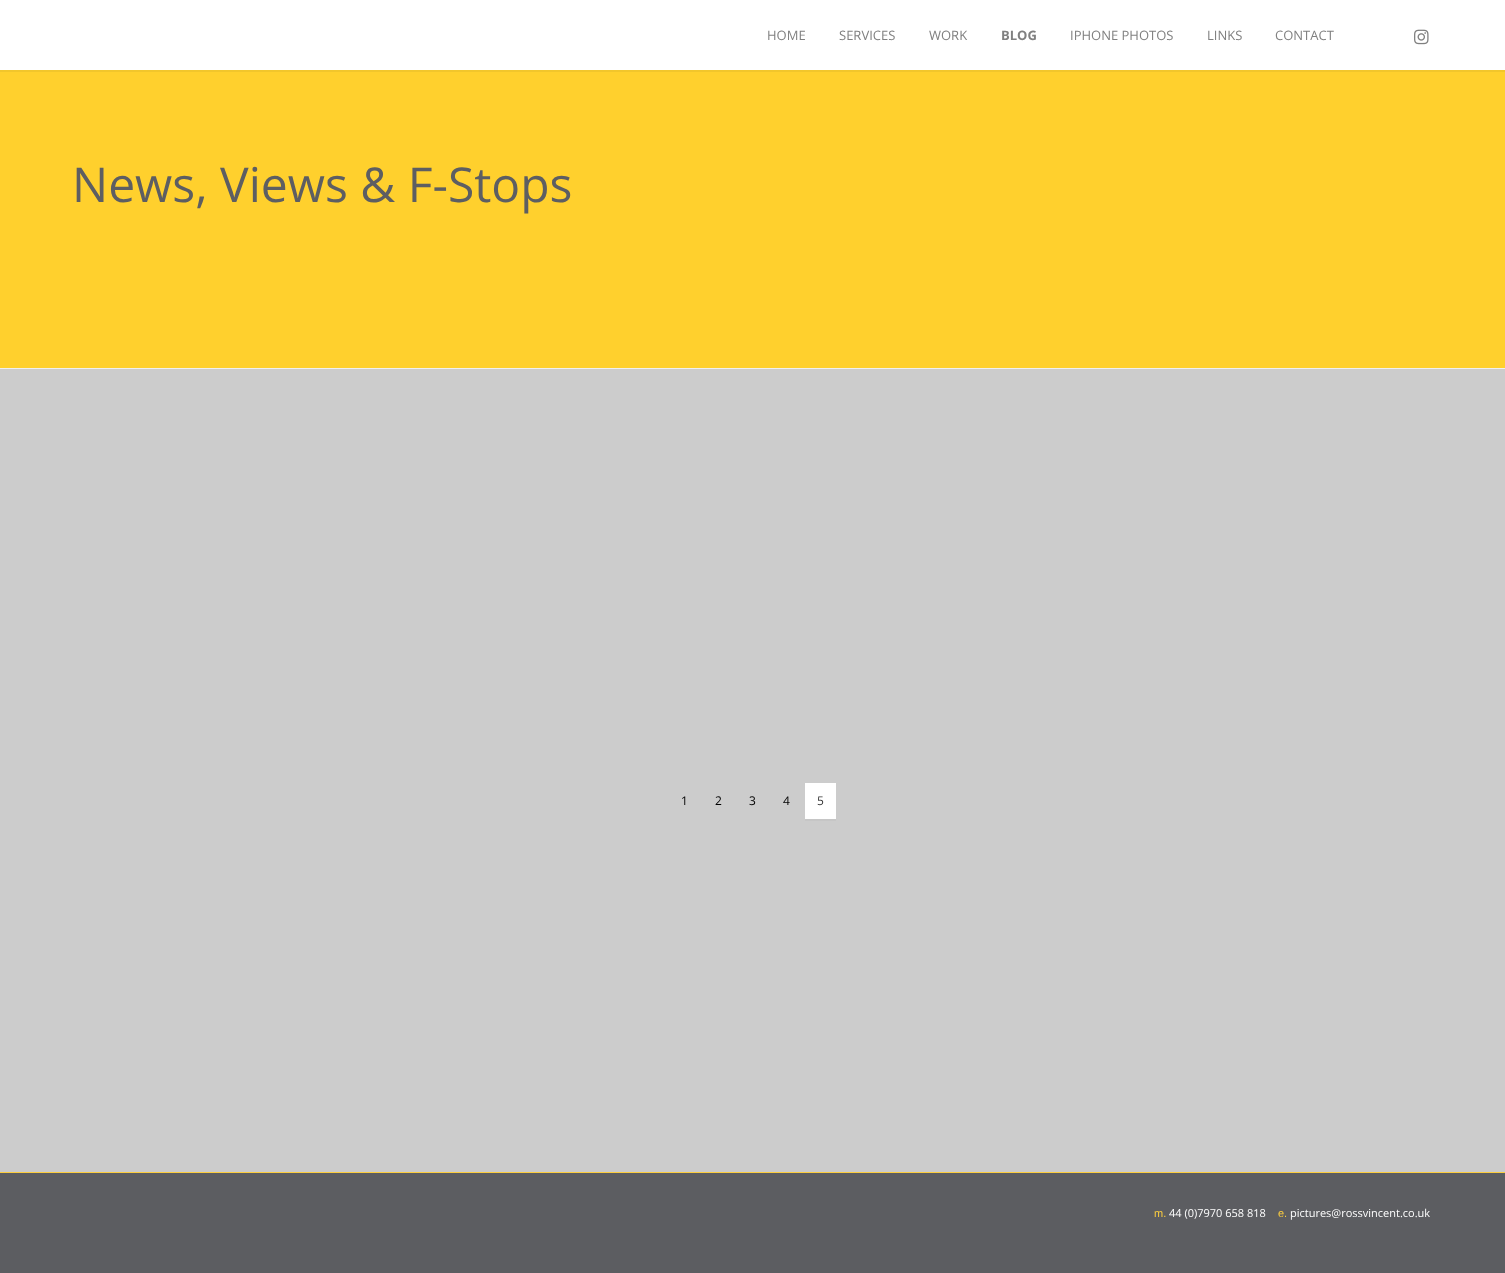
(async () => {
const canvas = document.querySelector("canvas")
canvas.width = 1505
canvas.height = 1273
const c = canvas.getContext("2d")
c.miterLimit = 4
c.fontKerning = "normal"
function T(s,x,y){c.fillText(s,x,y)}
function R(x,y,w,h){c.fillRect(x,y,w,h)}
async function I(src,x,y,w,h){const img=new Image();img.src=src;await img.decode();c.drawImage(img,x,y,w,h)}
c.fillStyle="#ccc"
R(0,0,1505,1273)
c.fillStyle="#fff"
R(0,0,1505,70)
c.font="13px Open Sans"
c.fillStyle="#808080"
T("HOME",767,40)
T("SERVICES",839,40)
T("WORK",929,40)
c.font="bold 13px Open Sans"
T("BLOG",1001,40)
c.font="13px Open Sans"
T("IPHONE PHOTOS",1070,40)
T("LINKS",1207,40)
T("CONTACT",1275,40)
await I("1.png",1414,29,15,16)
c.fillStyle="#f0f0f0"
R(0,368,1505,1)
c.fillStyle="#ffd02d"
R(0,72,1505,296)
c.fillStyle="#f2c62b"
R(0,70,1505,2)
c.font="48px Open Sans"
c.fillStyle="#5d5e62"
T("News, Views & F-Stops",72,202)
c.font="12px Open Sans"
c.fillStyle="#000"
T("1",681,805)
T("2",715,805)
T("3",749,805)
T("4",783,805)
c.fillStyle="#c6c6c6"
R(805,819,31,2)
c.fillStyle="#fff"
R(805,783,31,36)
c.fillStyle="#333"
T("5",817,805)
c.fillStyle="#5c5d61"
R(0,1173,1505,100)
c.fillStyle="#fdce3f"
R(0,1172,1505,1)
c.font="11px Liberation Sans"
T("m.",1154,1217)
c.font="11px Open Sans"
c.fillStyle="#fff"
T("44 (0)7970 658 818",1169,1217)
c.font="11px Liberation Sans"
c.fillStyle="#fdce3f"
T("e.",1278,1217)
c.font="11px Open Sans"
c.fillStyle="#fff"
T("pictures@rossvincent.co.uk",1290,1217)
})()
